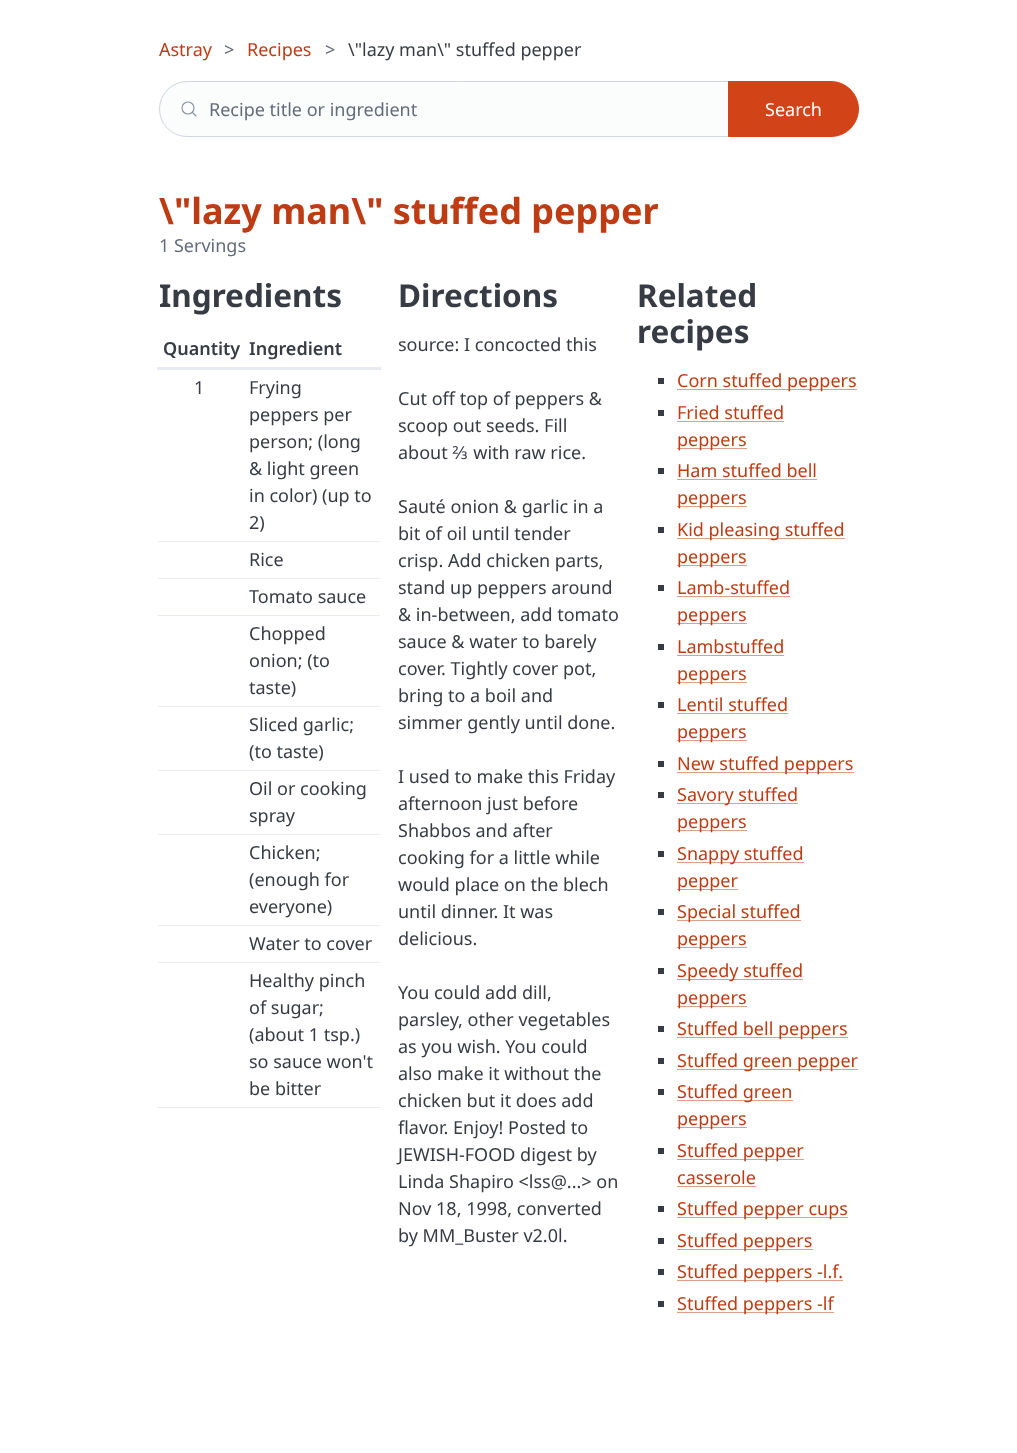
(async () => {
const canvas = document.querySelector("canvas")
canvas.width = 1017
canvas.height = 1453
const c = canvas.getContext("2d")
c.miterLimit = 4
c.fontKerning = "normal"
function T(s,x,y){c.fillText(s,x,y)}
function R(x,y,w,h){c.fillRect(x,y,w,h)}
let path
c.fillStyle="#fff"
R(0,0,1017,1453)
c.font="18px Noto Sans"
c.fillStyle="#bd3c13"
T("Astray",159,56)
c.fillStyle="#646b79"
T(">",224,56)
c.fillStyle="#bd3c13"
T("Recipes",247,56)
c.fillStyle="#646b79"
T(">",325,56)
c.fillStyle="#373c44"
T("\\\"lazy man\\\" stuffed pepper",348,56)
c.fillStyle="#fbfcfc"
c.beginPath()
c.roundRect(159,81,570,56,[28,0,0,28])
c.fill()
c.beginPath()
c.arc(188,108,6,0,7)
c.strokeStyle="#8891a4"
c.lineWidth=1.1
c.stroke()
path = new Path2D("M196 116l-3.5-3.5")
c.lineCap="round"
c.lineJoin="round"
c.stroke(path)
c.beginPath()
c.roundRect(159.5,81.5,569,55,[27.5,0,0,27.5])
c.strokeStyle="#cfd5e2"
c.lineWidth=1
c.lineJoin="miter"
c.stroke()
c.fillStyle="#646b79"
T("Recipe title or ingredient",209,116)
c.fillStyle="#d24317"
c.beginPath()
c.roundRect(728.5,81.5,130,55,[0,27.5,27.5,0])
c.fill()
c.strokeStyle="#d24317"
c.stroke()
c.fillStyle="#fff"
T("Search",765,116)
c.font="bold 36px Noto Sans"
c.fillStyle="#bd3c13"
T("\\\"lazy man\\\" stuffed pepper",159,224)
c.font="18px Noto Sans"
c.fillStyle="#646b79"
T("1 Servings",159,252)
c.font="bold 31.5px Noto Sans"
c.fillStyle="#373c44"
T("Ingredients",159,307)
c.font="600 18px Noto Sans"
T("Quantity",163,355)
c.fillStyle="#e7eaf0"
R(157,367,224,3)
c.fillStyle="#373c44"
T("Ingredient",249,355)
c.font="18px Noto Sans"
T("1",194,394)
c.fillStyle="#e7eaf0"
R(158,541,222,1)
c.fillStyle="#373c44"
T("Frying",249,394)
T("peppers per",249,421)
T("person; (long",249,448)
T("& light green",249,475)
T("in color) (up to",249,502)
T("2)",249,529)
c.fillStyle="#e7eaf0"
R(158,578,222,1)
c.fillStyle="#373c44"
T("Rice",249,566)
c.fillStyle="#e7eaf0"
R(158,615,222,1)
c.fillStyle="#373c44"
T("Tomato sauce",249,603)
c.fillStyle="#e7eaf0"
R(158,706,222,1)
c.fillStyle="#373c44"
T("Chopped",249,640)
T("onion; (to",249,667)
T("taste)",249,694)
c.fillStyle="#e7eaf0"
R(158,770,222,1)
c.fillStyle="#373c44"
T("Sliced garlic;",249,731)
T("(to taste)",249,758)
c.fillStyle="#e7eaf0"
R(158,834,222,1)
c.fillStyle="#373c44"
T("Oil or cooking",249,795)
T("spray",249,822)
c.fillStyle="#e7eaf0"
R(158,925,222,1)
c.fillStyle="#373c44"
T("Chicken;",249,859)
T("(enough for",249,886)
T("everyone)",249,913)
c.fillStyle="#e7eaf0"
R(158,962,222,1)
c.fillStyle="#373c44"
T("Water to cover",249,950)
c.fillStyle="#e7eaf0"
R(158,1107,222,1)
c.fillStyle="#373c44"
T("Healthy pinch",249,987)
T("of sugar;",249,1014)
T("(about 1 tsp.)",249,1041)
T("so sauce won't",249,1068)
T("be bitter",249,1095)
c.font="bold 31.5px Noto Sans"
T("Directions",398,307)
c.font="18px Noto Sans"
T("source: I concocted this",398,351)
T("Cut off top of peppers &",398,405)
T("scoop out seeds. Fill",398,432)
T("about ⅔ with raw rice.",398,459)
T("Sauté onion & garlic in a",398,513)
T("bit of oil until tender",398,540)
T("crisp. Add chicken parts,",398,567)
T("stand up peppers around",398,594)
T("& in-between, add tomato",398,621)
T("sauce & water to barely",398,648)
T("cover. Tightly cover pot,",398,675)
T("bring to a boil and",398,702)
T("simmer gently until done.",398,729)
T("I used to make this Friday",398,783)
T("afternoon just before",398,810)
T("Shabbos and after",398,837)
T("cooking for a little while",398,864)
T("would place on the blech",398,891)
T("until dinner. It was",398,918)
T("delicious.",398,945)
T("You could add dill,",398,999)
T("parsley, other vegetables",398,1026)
T("as you wish. You could",398,1053)
T("also make it without the",398,1080)
T("chicken but it does add",398,1107)
T("flavor. Enjoy! Posted to",398,1134)
T("JEWISH-FOOD digest by",398,1161)
T("Linda Shapiro <lss@...> on",398,1188)
T("Nov 18, 1998, converted",398,1215)
T("by MM_Buster v2.0l.",398,1242)
c.font="bold 31.5px Noto Sans"
T("Related",637,307)
T("recipes",637,343)
R(658,378,6,6)
c.fillStyle="#de9e89"
R(677,389,180,1)
c.font="18px Noto Sans"
c.fillStyle="#bd3c13"
T("Corn stuffed peppers",677,387)
c.fillStyle="#373c44"
R(658,410,6,6)
c.fillStyle="#bd3c13"
T("Fried stuffed",677,419)
c.fillStyle="#de9e89"
R(677,421,107,1)
R(677,448,70,1)
c.fillStyle="#bd3c13"
T("peppers",677,446)
c.fillStyle="#373c44"
R(658,468,6,6)
c.fillStyle="#bd3c13"
T("Ham stuffed bell",677,477)
c.fillStyle="#de9e89"
R(677,479,140,1)
R(677,506,70,1)
c.fillStyle="#bd3c13"
T("peppers",677,504)
c.fillStyle="#373c44"
R(658,527,6,6)
c.fillStyle="#de9e89"
R(677,538,168,1)
c.fillStyle="#bd3c13"
T("Kid pleasing stuffed",677,536)
c.fillStyle="#de9e89"
R(677,565,70,1)
c.fillStyle="#bd3c13"
T("peppers",677,563)
c.fillStyle="#373c44"
R(658,585,6,6)
c.fillStyle="#bd3c13"
T("Lamb-stuffed",677,594)
c.fillStyle="#de9e89"
R(677,596,113,1)
R(677,623,70,1)
c.fillStyle="#bd3c13"
T("peppers",677,621)
c.fillStyle="#373c44"
R(658,644,6,6)
c.fillStyle="#bd3c13"
T("Lambstuffed",677,653)
c.fillStyle="#de9e89"
R(677,655,107,1)
R(677,682,70,1)
c.fillStyle="#bd3c13"
T("peppers",677,680)
c.fillStyle="#373c44"
R(658,702,6,6)
c.fillStyle="#bd3c13"
T("Lentil stuffed",677,711)
c.fillStyle="#de9e89"
R(677,713,111,1)
R(677,740,70,1)
c.fillStyle="#bd3c13"
T("peppers",677,738)
c.fillStyle="#373c44"
R(658,761,6,6)
c.fillStyle="#de9e89"
R(677,772,177,1)
c.fillStyle="#bd3c13"
T("New stuffed peppers",677,770)
c.fillStyle="#373c44"
R(658,792,6,6)
c.fillStyle="#de9e89"
R(677,803,121,1)
c.fillStyle="#bd3c13"
T("Savory stuffed",677,801)
c.fillStyle="#de9e89"
R(677,830,70,1)
c.fillStyle="#bd3c13"
T("peppers",677,828)
c.fillStyle="#373c44"
R(658,851,6,6)
c.fillStyle="#de9e89"
R(677,862,127,1)
c.fillStyle="#bd3c13"
T("Snappy stuffed",677,860)
c.fillStyle="#de9e89"
R(677,889,61,1)
c.fillStyle="#bd3c13"
T("pepper",677,887)
c.fillStyle="#373c44"
R(658,909,6,6)
c.fillStyle="#de9e89"
R(677,920,124,1)
c.fillStyle="#bd3c13"
T("Special stuffed",677,918)
c.fillStyle="#de9e89"
R(677,947,70,1)
c.fillStyle="#bd3c13"
T("peppers",677,945)
c.fillStyle="#373c44"
R(658,968,6,6)
c.fillStyle="#de9e89"
R(677,979,126,1)
c.fillStyle="#bd3c13"
T("Speedy stuffed",677,977)
c.fillStyle="#de9e89"
R(677,1006,70,1)
c.fillStyle="#bd3c13"
T("peppers",677,1004)
c.fillStyle="#373c44"
R(658,1026,6,6)
c.fillStyle="#de9e89"
R(677,1037,171,1)
c.fillStyle="#bd3c13"
T("Stuffed bell peppers",677,1035)
c.fillStyle="#373c44"
R(658,1058,6,6)
c.fillStyle="#de9e89"
R(677,1069,181,1)
c.fillStyle="#bd3c13"
T("Stuffed green pepper",677,1067)
c.fillStyle="#373c44"
R(658,1089,6,6)
c.fillStyle="#de9e89"
R(677,1100,116,1)
c.fillStyle="#bd3c13"
T("Stuffed green",677,1098)
c.fillStyle="#de9e89"
R(677,1127,70,1)
c.fillStyle="#bd3c13"
T("peppers",677,1125)
c.fillStyle="#373c44"
R(658,1148,6,6)
c.fillStyle="#de9e89"
R(677,1159,127,1)
c.fillStyle="#bd3c13"
T("Stuffed pepper",677,1157)
T("casserole",677,1184)
c.fillStyle="#de9e89"
R(677,1186,79,1)
c.fillStyle="#373c44"
R(658,1206,6,6)
c.fillStyle="#de9e89"
R(677,1217,171,1)
c.fillStyle="#bd3c13"
T("Stuffed pepper cups",677,1215)
c.fillStyle="#373c44"
R(658,1238,6,6)
c.fillStyle="#de9e89"
R(677,1249,136,1)
c.fillStyle="#bd3c13"
T("Stuffed peppers",677,1247)
c.fillStyle="#373c44"
R(658,1269,6,6)
c.fillStyle="#de9e89"
R(677,1280,166,1)
c.fillStyle="#bd3c13"
T("Stuffed peppers -l.f.",677,1278)
c.fillStyle="#373c44"
R(658,1301,6,6)
c.fillStyle="#de9e89"
R(677,1312,157,1)
c.fillStyle="#bd3c13"
T("Stuffed peppers -lf",677,1310)
})()
